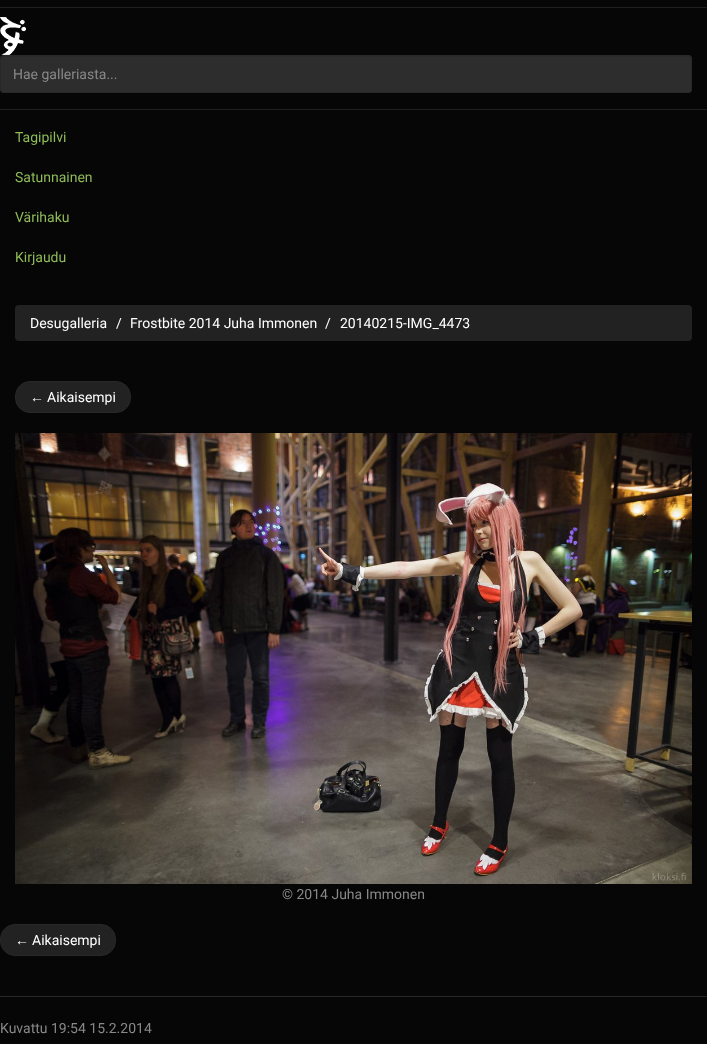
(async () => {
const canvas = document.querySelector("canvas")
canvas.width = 707
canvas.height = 1044
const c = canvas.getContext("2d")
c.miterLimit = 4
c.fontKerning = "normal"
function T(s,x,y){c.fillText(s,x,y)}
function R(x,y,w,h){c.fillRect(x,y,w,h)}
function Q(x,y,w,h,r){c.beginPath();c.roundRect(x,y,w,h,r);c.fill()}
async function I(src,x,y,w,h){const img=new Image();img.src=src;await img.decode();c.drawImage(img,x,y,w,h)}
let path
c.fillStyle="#060606"
R(0,0,707,1044)
c.fillStyle="#1f1f1f"
R(0,109,707,1)
R(0,7,707,1)
await I("1.png",0,17,26,38)
c.fillStyle="#2d2d2d"
Q(0,55,692,38,4)
c.fillStyle="#2a2a2a"
path = new Path2D("M4 57h684c2 0 3 1 3 3v-1c0-2-1-3-3-3h-684c-2 0-3 1-3 3v1c0-2 1-3 3-3z")
c.fill(path)
c.beginPath()
c.roundRect(.5,55.5,691,37,3.5)
c.strokeStyle="#282828"
c.stroke()
c.font="14px Roboto"
c.fillStyle="#888"
T("Hae galleriasta...",13,79)
c.fillStyle="#8fba58"
T("Tagipilvi",15,142)
T("Satunnainen",15,182)
T("Värihaku",15,222)
T("Kirjaudu",15,262)
c.fillStyle="#222"
Q(15,305,677,36,4)
c.fillStyle="#fff"
T("Desugalleria",30,328)
T("/",116,328)
T("Frostbite 2014 Juha Immonen",130,328)
T("/",325,328)
T("20140215-IMG_4473",340,328)
c.fillStyle="#222"
c.beginPath()
c.roundRect(15.5,381.5,115,31,14.5)
c.fill()
c.stroke()
c.font="14px Liberation Sans"
c.fillStyle="#fff"
T("←",30,402)
c.font="14px Roboto"
T("Aikaisempi",47,402)
await I("2.png",15,433,677,451)
c.fillStyle="#888"
T("© 2014 Juha Immonen",282,899)
c.fillStyle="#222"
c.beginPath()
c.roundRect(.5,924.5,115,31,14.5)
c.fill()
c.stroke()
c.font="14px Liberation Sans"
c.fillStyle="#fff"
T("←",15,945)
c.font="14px Roboto"
T("Aikaisempi",32,945)
c.fillStyle="#282828"
R(0,996,707,1)
c.fillStyle="#888"
T("Kuvattu 19:54 15.2.2014",0,1033)
})()
